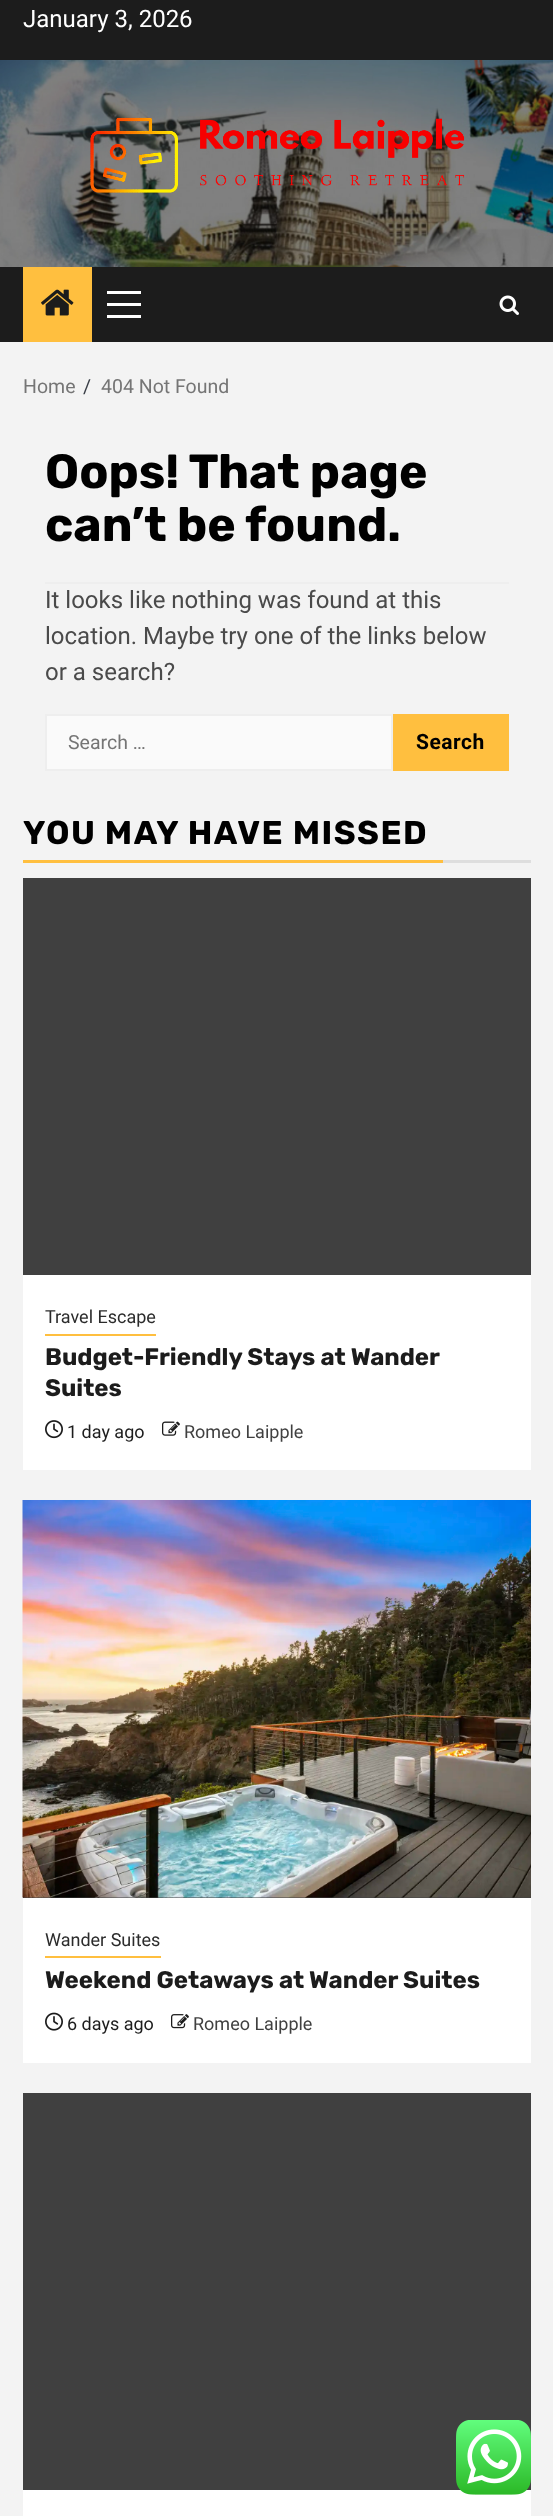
(async () => {
const canvas = document.querySelector("canvas")
canvas.width = 553
canvas.height = 2516
const c = canvas.getContext("2d")
c.miterLimit = 4
c.fontKerning = "normal"
function T(s,x,y){c.fillText(s,x,y)}
function R(x,y,w,h){c.fillRect(x,y,w,h)}
async function I(src,x,y,w,h){const img=new Image();img.src=src;await img.decode();c.drawImage(img,x,y,w,h)}
c.fillStyle="#f3f3f3"
R(0,0,553,2516)
c.fillStyle="#1c1c1c"
R(0,0,553,60)
c.font="24px Roboto"
c.fillStyle="#fff"
T("January 3, 2026",23,27)
await I("1.png",0,60,553,207)
await I("2.png",90,117,375,76)
c.fillStyle="#1c1c1c"
R(0,267,553,75)
c.fillStyle="#ffbf3f"
R(23,267,69,75)
await I("3.png",41,289,33,27)
c.fillStyle="#fff"
R(107,303,34,3)
R(107,291,34,3)
R(107,315,34,3)
await I("4.png",499,295,20,20)
c.font="19.5px Roboto"
c.fillStyle="#757575"
T("Home",23,393)
c.fillStyle="#393e46"
T("/",83,393)
c.fillStyle="#757575"
T("404 Not Found",101,393)
c.fillStyle="#eee"
R(45,582,464,2)
c.font="bold 48px Rubik"
c.fillStyle="#000"
T("Oops! That page",45,488)
T("can’t be found.",45,541)
c.font="24px Roboto"
c.fillStyle="#4a4a4a"
T("It looks like nothing was found at this",45,608)
T("location. Maybe try one of the links below",45,644)
T("or a search?",45,680)
c.fillStyle="#fafafa"
c.beginPath()
c.rect(46,715,346,55)
c.fill()
c.strokeStyle="#eee"
c.lineWidth=2
c.stroke()
c.font="19.5px Roboto"
c.fillStyle="#757575"
T("Search …",68,749)
c.fillStyle="#ffbf3f"
R(393,714,116,57)
c.letterSpacing="0.5px"
c.font="bold 21px Roboto"
c.fillStyle="#000"
T("Search",416,749)
c.fillStyle="#ffbf3f"
R(23,860,420,3)
c.letterSpacing="1.5px"
c.font="bold 33px Rubik"
c.fillStyle="#000"
T("YOU MAY HAVE MISSED",23,844)
c.fillStyle="#dedede"
R(443,860,88,3)
c.fillStyle="#fff"
R(23,1275,508,195)
c.fillStyle="#404040"
R(23,878,508,397)
c.fillStyle="#ffbf3f"
R(45,1334,111,2)
c.letterSpacing="0px"
c.font="18px Roboto"
c.fillStyle="#2b2b2b"
T("Travel Escape",45,1323)
c.font="bold 24px Rubik"
c.fillStyle="#1c1c1c"
T("Budget-Friendly Stays at Wander",45,1365)
T("Suites",45,1396)
await I("5.png",45,1420,18,19)
c.font="18px Roboto"
T("1 day ago",67,1438)
await I("6.png",162,1421,18,15)
c.fillStyle="#404040"
T("Romeo Laipple",184,1438)
c.fillStyle="#fff"
R(23,1898,508,165)
c.fillStyle="#404040"
R(23,1897,508,1)
await I("7.png",22,1500,509,398)
c.fillStyle="#ffbf3f"
R(45,1956,116,2)
c.fillStyle="#2b2b2b"
T("Wander Suites",45,1946)
c.font="bold 24px Rubik"
c.fillStyle="#1c1c1c"
T("Weekend Getaways at Wander Suites",45,1988)
await I("8.png",45,2012,18,19)
c.font="18px Roboto"
T("6 days ago",67,2030)
await I("9.png",171,2014,18,15)
c.fillStyle="#404040"
T("Romeo Laipple",193,2030)
c.fillStyle="#fff"
R(23,2490,508,26)
c.fillStyle="#404040"
R(23,2093,508,397)
await I("10.png",456,2420,75,75)
})()
